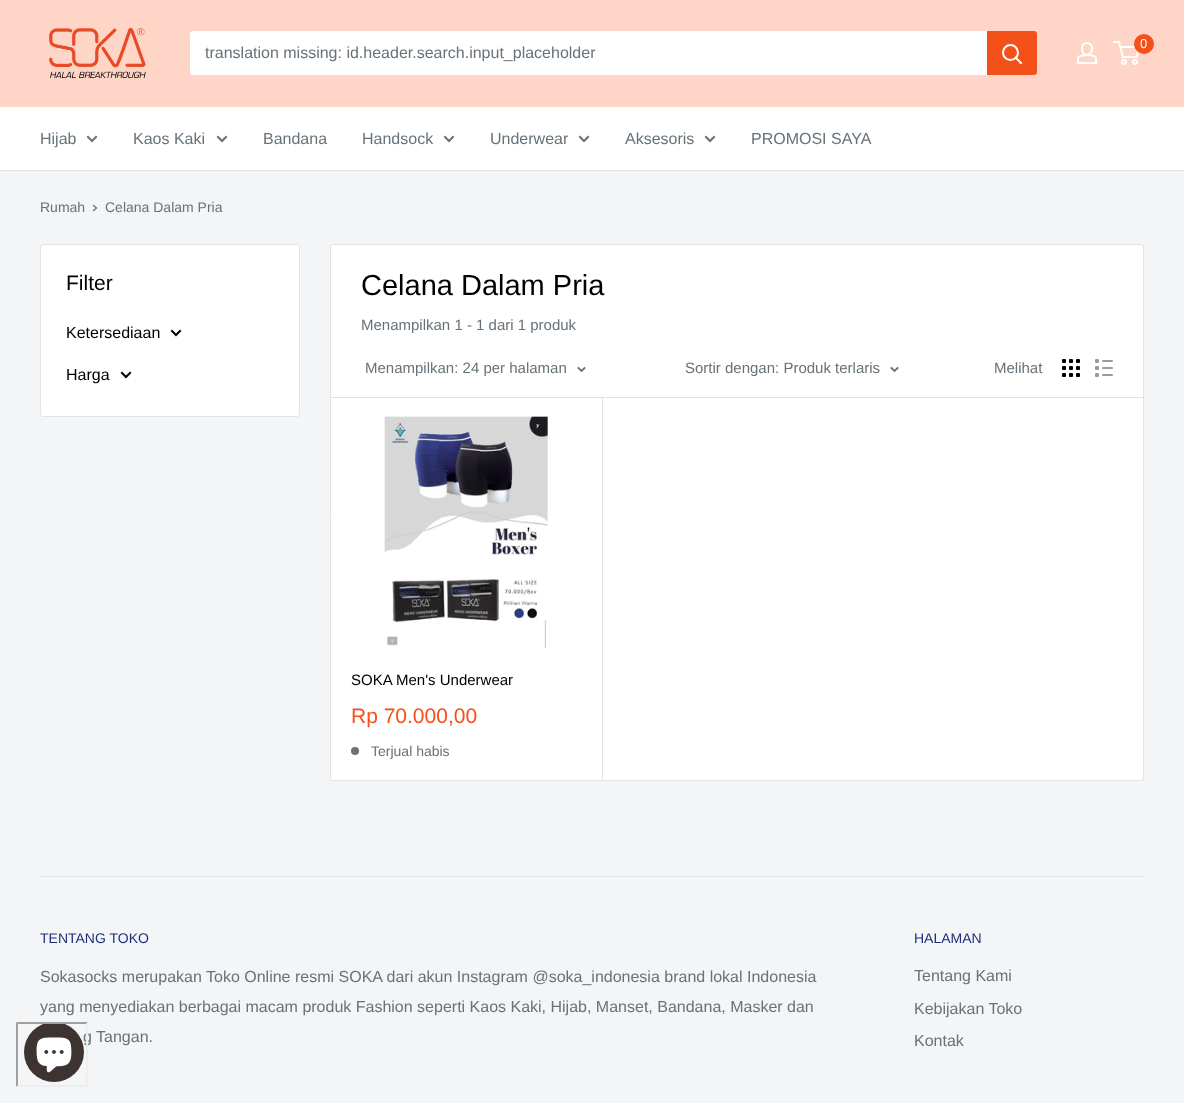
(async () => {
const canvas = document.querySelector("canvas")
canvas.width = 1184
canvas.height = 1103
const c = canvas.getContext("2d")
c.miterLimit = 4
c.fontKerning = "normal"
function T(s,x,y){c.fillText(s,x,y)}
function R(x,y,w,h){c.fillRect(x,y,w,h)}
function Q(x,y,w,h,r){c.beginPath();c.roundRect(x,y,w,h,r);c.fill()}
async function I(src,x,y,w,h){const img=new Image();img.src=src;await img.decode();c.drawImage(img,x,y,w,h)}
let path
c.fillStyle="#f3f5f6"
R(0,0,1184,1103)
c.fillStyle="#ffd5c7"
R(0,0,1184,107)
await I("1.png",49,27,97,52)
await I("2.png",1077,42,20,22)
c.beginPath()
c.arc(1124,62,2,0,7)
c.strokeStyle="#fff"
c.lineWidth=2
c.stroke()
c.beginPath()
c.arc(1135,62,2,0,7)
c.stroke()
path = new Path2D("M1120.5 47h18l-1.5 10h-14l-4-15h-6")
c.stroke(path)
c.fillStyle="#f3501a"
c.beginPath()
c.arc(1144,44,10,0,7)
c.fill()
c.font="13px Liberation Sans"
c.fillStyle="#fff"
T("0",1140,48)
Q(190,31,847,44,3)
c.font="16px Liberation Sans"
c.fillStyle="#677279"
T("translation missing: id.header.search.input_placeholder",205,58)
c.fillStyle="#f3501a"
c.beginPath()
c.roundRect(987,31,50,44,[0,3,3,0])
c.fill()
path = new Path2D("M1021 63l-5-5")
c.lineCap="square"
c.stroke(path)
c.beginPath()
c.arc(1010.5,52.5,7.5,0,7)
c.stroke()
c.fillStyle="#fff"
R(0,107,1184,63)
c.fillStyle="#e1e3e4"
R(0,170,1184,1)
c.fillStyle="#677279"
T("Hijab",40,144)
path = new Path2D("M96 137l-4 4l-4-4")
c.strokeStyle="#677279"
c.stroke(path)
T("Kaos Kaki",133,144)
path = new Path2D("M226 137l-4 4l-4-4")
c.stroke(path)
T("Bandana",263,144)
T("Handsock",362,144)
path = new Path2D("M453 137l-4 4l-4-4")
c.stroke(path)
T("Underwear",490,144)
path = new Path2D("M588 137l-4 4l-4-4")
c.stroke(path)
T("Aksesoris",625,144)
path = new Path2D("M714 137l-4 4l-4-4")
c.stroke(path)
T("PROMOSI SAYA",751,144)
c.font="14px Liberation Sans"
T("Rumah",40,212)
path = new Path2D("M93.5 205.5l3 2.5l-3 2.5")
c.lineWidth=1.3
c.stroke(path)
T("Celana Dalam Pria",105,212)
c.fillStyle="#fff"
c.beginPath()
c.roundRect(40.5,244.5,259,172,2.5)
c.fill()
c.strokeStyle="#e1e3e4"
c.lineWidth=1
c.stroke()
c.font="21px Liberation Sans"
c.fillStyle="#000"
T("Filter",66,290)
c.font="16px Liberation Sans"
T("Ketersediaan",66,338)
path = new Path2D("M180 331l-4 4l-4-4m-42 42l-4 4l-4-4")
c.strokeStyle="#000"
c.lineWidth=2
c.stroke(path)
T("Harga",66,380)
c.fillStyle="#fff"
c.beginPath()
c.roundRect(330.5,244.5,813,536,2.5)
c.fill()
c.strokeStyle="#e1e3e4"
c.lineWidth=1
c.stroke()
c.font="29px Liberation Sans"
c.fillStyle="#000"
T("Celana Dalam Pria",361,295)
c.font="15px Liberation Sans"
c.fillStyle="#677279"
T("Menampilkan 1 - 1 dari 1 produk",361,330)
c.fillStyle="#e1e3e4"
R(602,397,1,383)
R(331,397,812,1)
c.fillStyle="#677279"
T("Menampilkan: 24 per halaman",365,373)
path = new Path2D("M584.5 368l-3 3l-3-3")
c.strokeStyle="#677279"
c.lineWidth=1.9
c.stroke(path)
T("Sortir dengan: Produk terlaris",685,373)
path = new Path2D("M897.5 368l-3 3l-3-3")
c.stroke(path)
T("Melihat",994,373)
await I("3.png",1062,359,18,18)
await I("4.png",1095,359,18,18)
await I("5.png",384,416,164,232)
c.fillStyle="#000"
T("SOKA Men's Underwear",351,685)
c.font="21px Liberation Sans"
c.fillStyle="#f3501a"
T("Rp 70.000,00",351,723)
c.fillStyle="#677279"
c.beginPath()
c.arc(355,751,4,0,7)
c.fill()
c.font="14px Liberation Sans"
T("Terjual habis",371,756)
c.fillStyle="#e1e3e4"
R(40,876,1104,1)
c.fillStyle="#1e2d7d"
T("TENTANG TOKO",40,943)
c.font="16px Liberation Sans"
c.fillStyle="#677279"
T("Sokasocks merupakan Toko Online resmi SOKA dari akun Instagram @soka_indonesia brand lokal Indonesia",40,982)
T("yang menyediakan berbagai macam produk Fashion seperti Kaos Kaki, Hijab, Manset, Bandana, Masker dan",40,1012)
T("g Tangan.",83,1042)
c.font="14px Liberation Sans"
c.fillStyle="#1e2d7d"
T("HALAMAN",914,943)
c.font="16px Liberation Sans"
c.fillStyle="#677279"
T("Tentang Kami",914,981)
T("Kebijakan Toko",914,1014)
T("Kontak",914,1046)
c.fillStyle="#9f9f9f"
path = new Path2D("M16 1022h72l-2 2h-68z")
c.fill(path)
c.fillStyle="#eee"
path = new Path2D("M88 1022v65l-2-2v-61z")
c.fill(path)
path = new Path2D("M88 1087h-72l2-2h68z")
c.fill(path)
c.fillStyle="#9f9f9f"
path = new Path2D("M16 1087v-65l2 2v61z")
c.fill(path)
await I("6.png",24,1024,60,58)
})()
